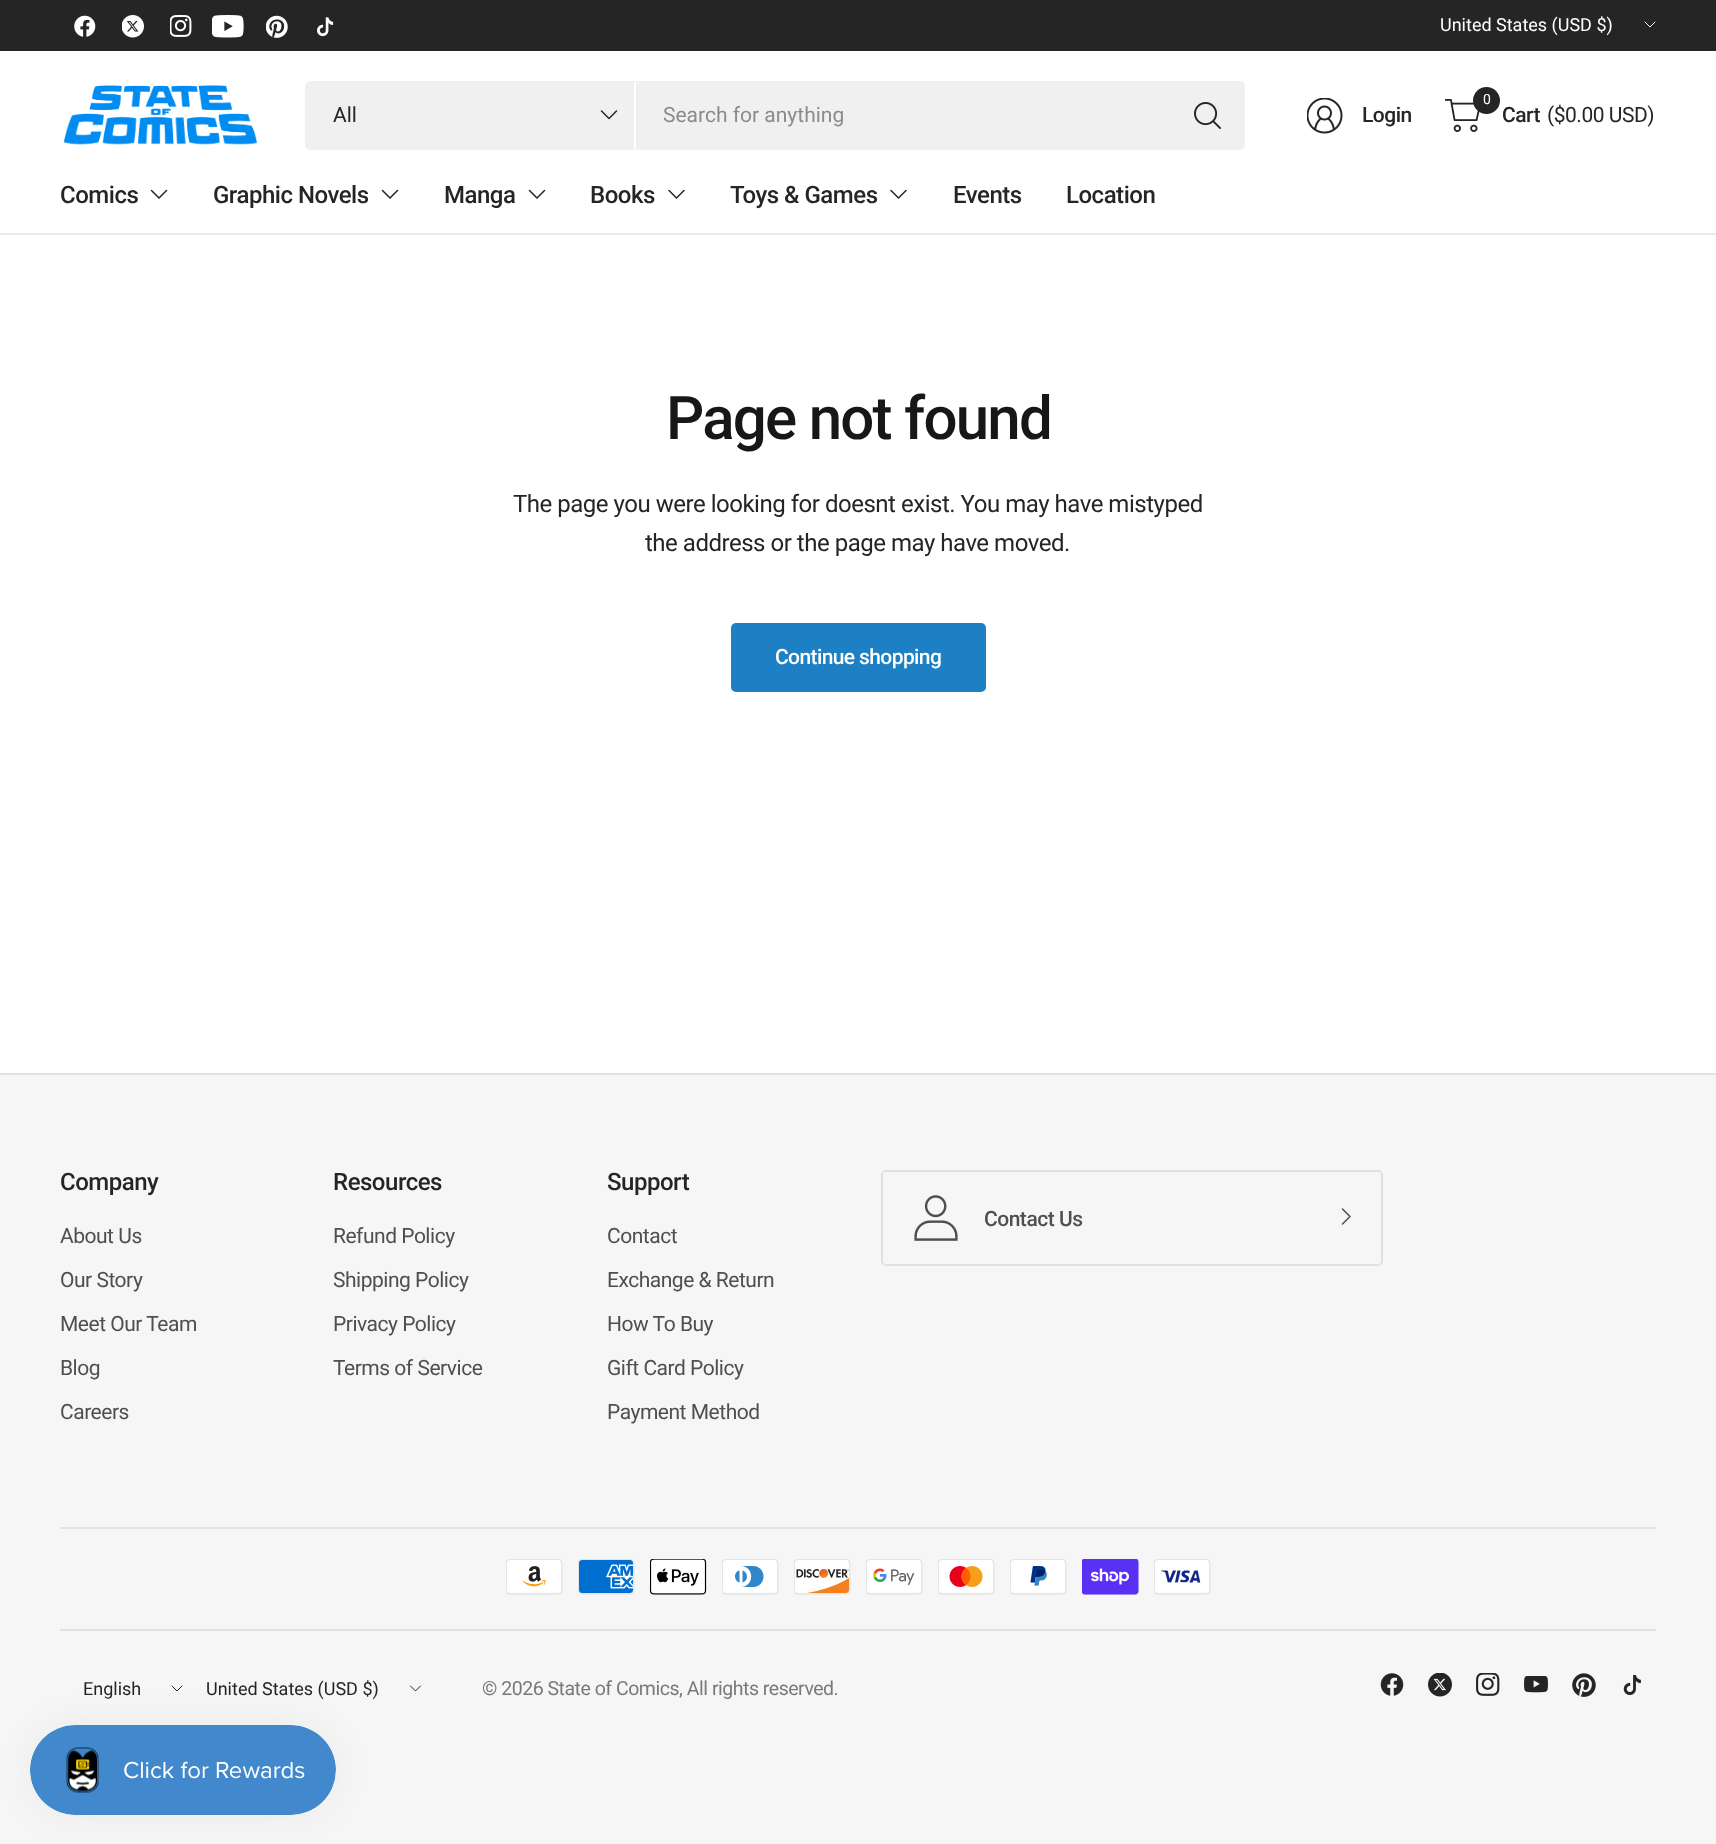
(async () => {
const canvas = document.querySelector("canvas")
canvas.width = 1716
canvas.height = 1844
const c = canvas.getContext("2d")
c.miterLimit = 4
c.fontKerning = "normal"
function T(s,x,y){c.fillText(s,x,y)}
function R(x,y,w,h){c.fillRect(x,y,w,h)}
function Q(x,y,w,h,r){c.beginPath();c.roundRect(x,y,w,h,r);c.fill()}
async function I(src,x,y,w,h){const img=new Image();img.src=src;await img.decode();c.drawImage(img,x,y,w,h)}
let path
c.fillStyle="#fff"
R(0,0,1716,1844)
c.fillStyle="#252525"
R(0,0,1716,51)
await I("1.png",74,15,22,22)
await I("2.png",122,15,22,23)
await I("3.png",170,15,22,22)
await I("4.png",212,15,32,23)
await I("5.png",266,15,22,23)
await I("6.png",317,17,17,20)
c.font="18px Roboto"
c.fillStyle="#fff"
T("United States (USD $)",1440,31)
path = new Path2D("M1655 22l-5 5l-5-5")
c.strokeStyle="#fff"
c.lineCap="round"
c.lineJoin="round"
c.stroke(path)
await I("7.png",63,85,194,60)
c.fillStyle="#f0f0f0"
c.beginPath()
c.roundRect(305,81,331,69,[5,0,0,5])
c.fill()
c.fillStyle="#fff"
path = new Path2D("M636 81l-2 2v65l2 2z")
c.fill(path)
c.font="21px Roboto"
c.fillStyle="#252525"
T("All",333,122)
path = new Path2D("M616.5 111l-7.5 7.5l-7.5-7.5")
c.strokeStyle="#252525"
c.lineWidth=1.5
c.stroke(path)
c.fillStyle="#f0f0f0"
c.beginPath()
c.roundRect(636,81,609,69,[0,5,5,0])
c.fill()
c.fillStyle="#8b8b8b"
T("Search for anything",663,122)
await I("8.png",1194,102,27,27)
await I("9.png",1307,98,36,36)
c.letterSpacing="-0.48px"
c.font="500 21px Roboto"
c.fillStyle="#252525"
T("Login",1362,122)
await I("10.png",1445,99,35,33)
c.beginPath()
c.arc(1486.5,100.5,13.5,0,7)
c.fill()
c.font="14px Roboto"
c.fillStyle="#fff"
T("0",1483,104)
c.font="500 21px Roboto"
c.fillStyle="#252525"
T("Cart",1502,122)
c.font="21px Roboto"
T("($0.00 USD)",1547,122)
c.font="500 24px Roboto"
T("Comics",60,203)
path = new Path2D("M166.5 190.5l-7.5 7.5l-7.5-7.5")
c.stroke(path)
T("Graphic Novels",213,203)
path = new Path2D("M397.5 190.5l-7.5 7.5l-7.5-7.5")
c.stroke(path)
T("Manga",444,203)
path = new Path2D("M544.5 190.5l-7.5 7.5l-7.5-7.5")
c.stroke(path)
T("Books",590,203)
path = new Path2D("M684 190.5l-7.5 7.5l-7.5-7.5")
c.stroke(path)
T("Toys & Games",730,203)
path = new Path2D("M906 190.5l-7.5 7.5l-7.5-7.5")
c.stroke(path)
T("Events",953,203)
T("Location",1066,203)
c.fillStyle="#e9e9e9"
R(0,233,1716,2)
c.letterSpacing="-1.75px"
c.font="500 60px Roboto"
c.fillStyle="#171717"
T("Page not found",666,439)
c.letterSpacing="-0.48px"
c.font="24px Roboto"
c.fillStyle="#252525"
T("The page you were looking for doesnt exist. You may have mistyped",513,512)
T("the address or the page may have moved.",645,551)
c.fillStyle="#1e80c4"
Q(731,623,255,69,5)
c.letterSpacing="-0.6px"
c.font="500 21px Roboto"
c.fillStyle="#fff"
T("Continue shopping",775,664)
c.fillStyle="#e1e1e1"
R(0,1073,1716,2)
c.fillStyle="#f6f6f6"
R(0,1075,1716,769)
c.letterSpacing="-0.48px"
c.font="500 24px Roboto"
c.fillStyle="#252525"
T("Company",60,1190)
c.font="21px Roboto"
c.fillStyle="#4f4f4f"
T("About Us",60,1243)
T("Our Story",60,1287)
T("Meet Our Team",60,1331)
T("Blog",60,1375)
T("Careers",60,1419)
c.font="500 24px Roboto"
c.fillStyle="#252525"
T("Resources",333,1190)
c.font="21px Roboto"
c.fillStyle="#4f4f4f"
T("Refund Policy",333,1243)
T("Shipping Policy",333,1287)
T("Privacy Policy",333,1331)
T("Terms of Service",333,1375)
c.font="500 24px Roboto"
c.fillStyle="#252525"
T("Support",607,1190)
c.font="21px Roboto"
c.fillStyle="#4f4f4f"
T("Contact",607,1243)
T("Exchange & Return",607,1287)
T("How To Buy",607,1331)
T("Gift Card Policy",607,1375)
T("Payment Method",607,1419)
c.beginPath()
c.roundRect(882,1171,500,94,4)
c.strokeStyle="#e1e1e1"
c.lineWidth=2
c.lineJoin="miter"
c.stroke()
await I("11.png",914,1195,44,46)
c.font="500 21px Roboto"
T("Contact Us",984,1226)
path = new Path2D("M1342.5 1209l7.5 7.5l-7.5 7.5")
c.strokeStyle="#4f4f4f"
c.lineWidth=1.5
c.lineJoin="round"
c.stroke(path)
c.fillStyle="#e1e1e1"
R(60,1527,1596,2)
await I("12.png",506,1559,57,36)
await I("13.png",578,1559,57,36)
await I("14.png",650,1559,57,36)
await I("15.png",722,1559,57,36)
await I("16.png",794,1559,57,36)
await I("17.png",866,1559,57,36)
await I("18.png",938,1559,57,36)
await I("19.png",1010,1559,57,36)
await I("20.png",1082,1559,57,36)
await I("21.png",1154,1559,57,36)
R(60,1629,1596,2)
c.letterSpacing="0px"
c.font="18px Roboto"
c.fillStyle="#252525"
T("English",83,1695)
path = new Path2D("M182 1686l-5 5l-5-5")
c.strokeStyle="#252525"
c.lineWidth=1
c.stroke(path)
T("United States (USD $)",206,1695)
path = new Path2D("M420.5 1686l-5 5l-5-5")
c.stroke(path)
c.letterSpacing="-0.48px"
c.font="19.5px Roboto"
c.fillStyle="#797979"
T("© 2026 State of Comics, All rights reserved.",482,1695)
await I("22.png",1380,1673,24,23)
await I("23.png",1428,1673,24,24)
await I("24.png",1476,1673,24,23)
await I("25.png",1524,1676,24,17)
await I("26.png",1572,1673,24,24)
await I("27.png",1623,1675,18,20)
c.fillStyle="#0000000d"
c.filter="blur(19px)"
c.beginPath()
c.roundRect(30,1725,306,90,45)
c.fill()
c.filter="none"
await I("28.png",30,1725,306,90)
})()
